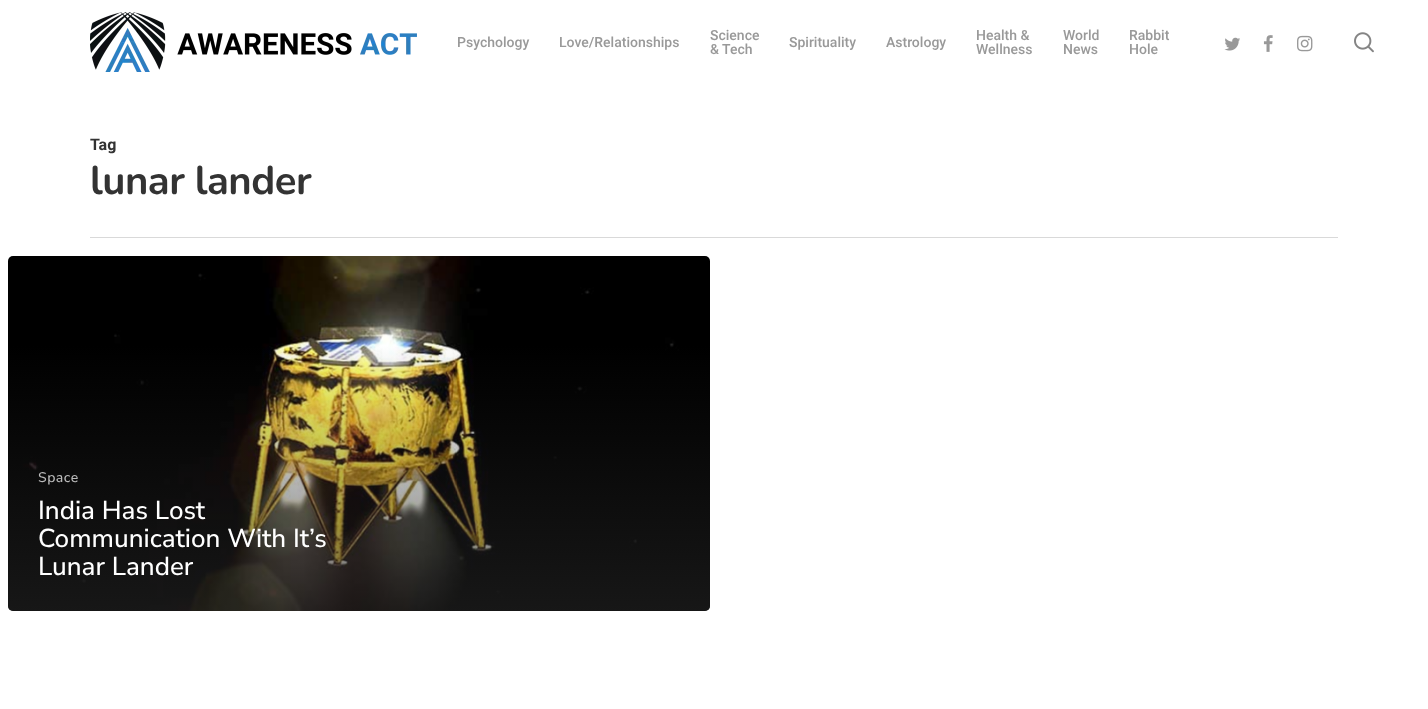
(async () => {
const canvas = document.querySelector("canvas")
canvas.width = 1428
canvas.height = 709
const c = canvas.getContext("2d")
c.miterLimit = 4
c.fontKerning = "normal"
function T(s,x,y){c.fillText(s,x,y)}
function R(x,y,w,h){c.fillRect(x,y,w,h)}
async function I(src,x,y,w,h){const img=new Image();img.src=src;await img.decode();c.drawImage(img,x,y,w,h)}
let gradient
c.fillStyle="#fff"
R(0,0,1428,709)
await I("1.png",90,12,327,60)
c.font="500 14px Roboto"
c.fillStyle="#999"
T("Psychology",457,47)
T("Love/Relationships",559,47)
T("Science",710,40)
T("& Tech",710,54)
T("Spirituality",789,47)
T("Astrology",886,47)
T("Health &",976,40)
T("Wellness",976,54)
T("World",1063,40)
T("News",1063,54)
T("Rabbit",1129,40)
T("Hole",1129,54)
await I("2.png",1224,37,16,14)
await I("3.png",1263,35,10,17)
await I("4.png",1297,35,16,17)
await I("5.png",1354,32,20,21)
c.fillStyle="#d9d9d9"
R(90,237,1248,1)
c.font="bold 16px Roboto"
c.fillStyle="#333"
T("Tag",90,150)
c.letterSpacing="-0.5px"
c.font="bold 40px Nunito"
T("lunar lander",90,194)
await I("6.png",8,256,702,355)
gradient = c.createLinearGradient(361,345,361,612)
gradient.addColorStop(0,"#23232300")
gradient.addColorStop(1,"#232323a6")
c.fillStyle = gradient
c.beginPath()
c.roundRect(8,345,702,266,[0,0,5,5])
c.fill()
c.letterSpacing="0.5px"
c.font="500 14px Nunito Sans"
c.fillStyle="#bbb"
T("Space",38,482)
c.letterSpacing="0px"
c.font="500 26px Nunito Sans"
c.fillStyle="#fff"
T("India Has Lost",38,519)
T("Communication With It’s",38,547)
T("Lunar Lander",38,575)
})()
